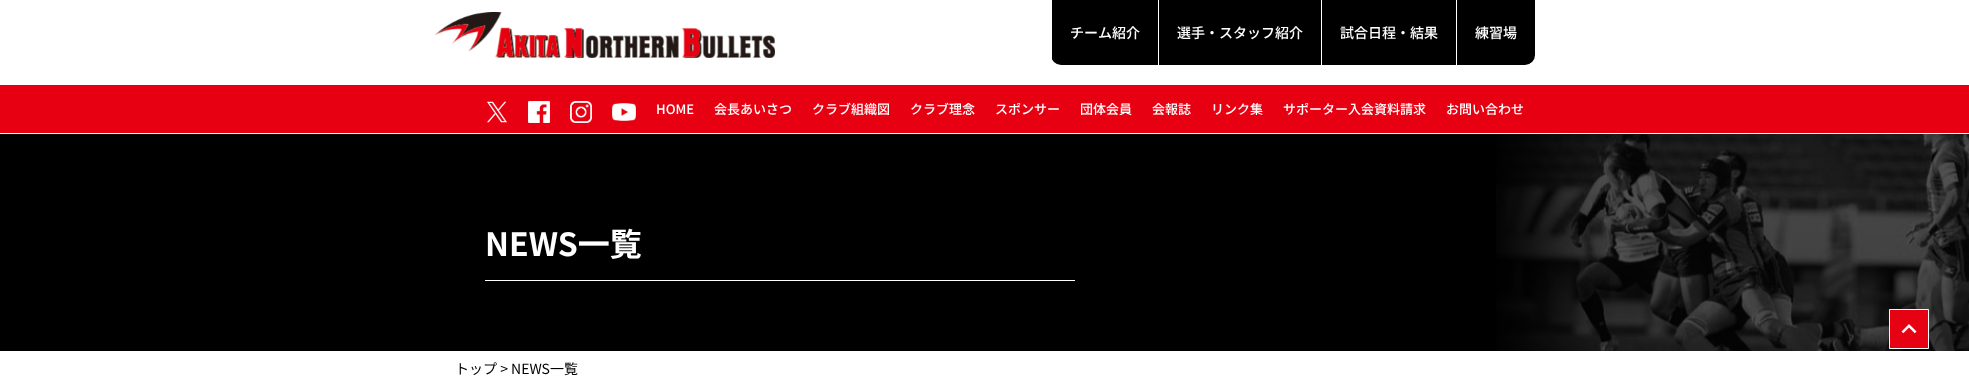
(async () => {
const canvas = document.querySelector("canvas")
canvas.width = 1969
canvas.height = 389
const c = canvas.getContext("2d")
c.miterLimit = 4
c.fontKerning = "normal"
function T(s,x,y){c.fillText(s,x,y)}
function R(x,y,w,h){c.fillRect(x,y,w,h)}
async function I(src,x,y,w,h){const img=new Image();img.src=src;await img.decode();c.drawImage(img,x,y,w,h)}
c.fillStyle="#fff"
R(0,0,1969,389)
await I("1.png",435,12,340,46)
c.fillStyle="#000"
c.beginPath()
c.roundRect(1051,0,107,65,[0,0,0,10])
c.fill()
c.fillStyle="#fff"
R(1051,0,1,60)
c.font="500 14px Noto Sans JP"
T("チーム紹介",1070,38)
c.fillStyle="#000"
R(1159,0,162,65)
c.fillStyle="#fff"
T("選手・スタッフ紹介",1177,38)
c.fillStyle="#000"
R(1322,0,134,65)
c.fillStyle="#fff"
T("試合日程・結果",1340,38)
c.fillStyle="#000"
c.beginPath()
c.roundRect(1456,0,79,65,[0,0,10,0])
c.fill()
c.fillStyle="#fff"
R(1456,0,1,65)
T("練習場",1475,38)
c.fillStyle="#e60012"
R(0,85,1969,48)
await I("2.png",486,101,22,22)
await I("3.png",528,101,22,22)
await I("4.png",570,101,22,22)
await I("5.png",612,103,24,18)
c.font="500 13px Noto Sans JP"
c.fillStyle="#fff"
T("HOME",656,114)
T("会長あいさつ",714,114)
T("クラブ組織図",812,114)
T("クラブ理念",910,114)
T("スポンサー",995,114)
T("団体会員",1080,114)
T("会報誌",1152,114)
T("リンク集",1211,114)
T("サポーター入会資料請求",1283,114)
T("お問い合わせ",1446,114)
c.fillStyle="#000"
R(0,134,1496,217)
await I("6.png",1496,134,473,217)
c.fillStyle="#fff"
R(485,280,590,1)
c.font="bold 32px Noto Sans JP"
T("NEWS一覧",485,256)
c.font="14px Noto Sans JP"
c.fillStyle="#000"
T("トップ > NEWS一覧",455,374)
c.fillStyle="#e60213"
c.beginPath()
c.rect(1889.5,309.5,39,39)
c.fill()
c.strokeStyle="#fff"
c.stroke()
await I("7.png",1901,324,16,10)
})()
